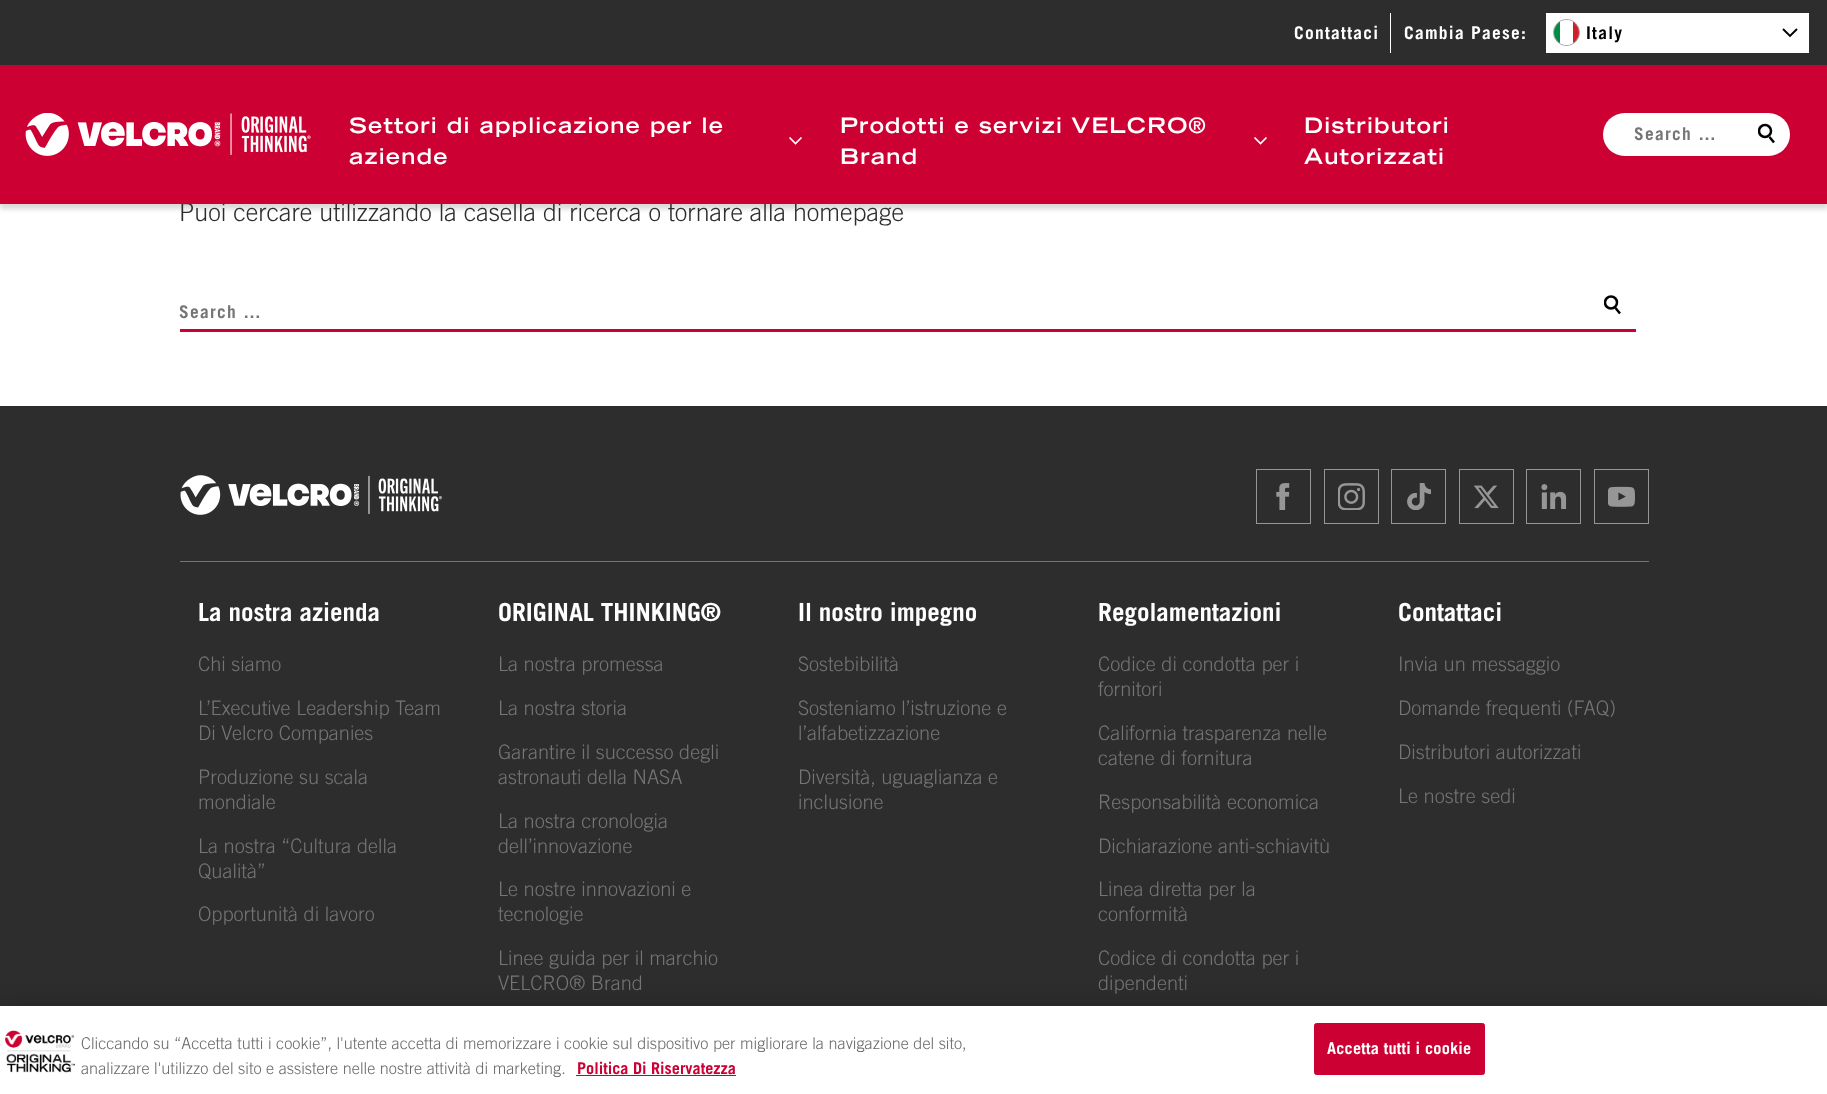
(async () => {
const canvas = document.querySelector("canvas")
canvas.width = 1827
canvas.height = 1094
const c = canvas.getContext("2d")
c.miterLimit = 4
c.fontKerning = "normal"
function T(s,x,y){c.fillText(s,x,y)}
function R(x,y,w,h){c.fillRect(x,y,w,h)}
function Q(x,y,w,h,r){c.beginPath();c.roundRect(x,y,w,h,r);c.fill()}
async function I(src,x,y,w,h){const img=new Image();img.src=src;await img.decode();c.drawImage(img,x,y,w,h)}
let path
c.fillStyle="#fff"
R(0,0,1827,1094)
c.fillStyle="#00000026"
c.filter="blur(2.5px)"
c.beginPath()
c.rect(0,5,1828,204)
c.fill()
c.filter="none"
c.font="300 25px Trade Gothic"
c.fillStyle="#2d2d2d"
T("Puoi cercare utilizzando la casella di ricerca o tornare alla homepage",179,221)
c.fillStyle="#c03"
R(0,65,1827,139)
c.fillStyle="#2d2d2d"
R(0,0,1827,65)
c.letterSpacing="1.25px"
c.font="bold 17.5px Trade Gothic"
c.fillStyle="#fff"
T("Contattaci",1294,39)
R(1390,13,1,40)
T("Cambia Paese:",1404,39)
R(1546,13,263,40)
c.beginPath()
c.arc(1566.5,32.5,13,0,7)
c.strokeStyle="#999"
c.stroke()
c.save()
c.beginPath()
c.roundRect(1554,20,25,25,12.5)
c.clip()
c.fillStyle="#008c45"
R(1554,20,6,25)
c.fillStyle="#fff"
R(1560,20,13,25)
c.fillStyle="#cd212a"
R(1573,20,6,25)
c.restore()
c.fillStyle="#000"
T("Italy",1586,39)
path = new Path2D("M1797 29l-7 7l-7-7")
c.strokeStyle="#000"
c.lineWidth=1.9
c.stroke(path)
await I("1.png",25,113,286,43)
c.font="bold 21.25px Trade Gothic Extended"
c.fillStyle="#fff"
T("Settori di applicazione per le",349,133)
path = new Path2D("M801.5 137.5l-6 6l-6-6")
c.strokeStyle="#fff"
c.lineWidth=1.7
c.stroke(path)
T("aziende",349,164)
T("Prodotti e servizi VELCRO®",840,133)
path = new Path2D("M1266.5 137.5l-6 6l-6-6")
c.stroke(path)
T("Brand",840,164)
T("Distributori",1304,133)
T("Autorizzati",1304,164)
Q(1603,113,187,43,21.5)
c.font="bold 17.5px Trade Gothic"
c.fillStyle="#757575"
T("Search …",1634,140)
c.save()
c.beginPath()
c.rect(1758,110,20,45)
c.clip()
c.beginPath()
c.arc(1765,131,6,0,7)
c.strokeStyle="#000"
c.lineWidth=2.5
c.stroke()
c.restore()
path = new Path2D("M1769.5 137l4.5 5.5")
c.strokeStyle="#000"
c.lineWidth=2.5
c.stroke(path)
c.fillStyle="#c03"
R(180,329,1456,3)
c.fillStyle="#757575"
T("Search …",179,318)
c.save()
c.beginPath()
c.rect(1604,281,20,45)
c.clip()
c.beginPath()
c.arc(1611,302.5,6,0,7)
c.stroke()
c.restore()
path = new Path2D("M1615.5 308l4.5 5.5")
c.stroke(path)
c.fillStyle="#2d2d2d"
R(0,406,1827,600)
c.fillStyle="#757575"
R(180,561,1469,1)
await I("2.png",180,475,262,40)
c.strokeStyle="#969696"
c.lineWidth=1
c.strokeRect(1256.5,469.5,54,54)
await I("3.png",1276,483,14,27)
c.strokeRect(1324.5,469.5,54,54)
await I("4.png",1338,483,27,27)
c.strokeRect(1391.5,469.5,54,54)
await I("5.png",1407,483,24,27)
c.strokeRect(1459.5,469.5,54,54)
await I("6.png",1474,485,25,24)
c.strokeRect(1526.5,469.5,54,54)
await I("7.png",1541,484,26,25)
c.strokeRect(1594.5,469.5,54,54)
await I("8.png",1608,486,27,21)
c.letterSpacing="0px"
c.font="bold 25px Trade Gothic"
c.fillStyle="#fff"
T("La nostra azienda",198,621)
c.font="300 20px Trade Gothic"
c.fillStyle="#757575"
T("Chi siamo",198,671)
T("L’Executive Leadership Team",198,715)
T("Di Velcro Companies",198,740)
T("Produzione su scala",198,784)
T("mondiale",198,809)
T("La nostra “Cultura della",198,853)
T("Qualità”",198,878)
T("Opportunità di lavoro",198,921)
c.font="bold 25px Trade Gothic"
c.fillStyle="#fff"
T("ORIGINAL THINKING®",498,621)
c.font="300 20px Trade Gothic"
c.fillStyle="#757575"
T("La nostra promessa",498,671)
T("La nostra storia",498,715)
T("Garantire il successo degli",498,759)
T("astronauti della NASA",498,784)
T("La nostra cronologia",498,828)
T("dell’innovazione",498,853)
T("Le nostre innovazioni e",498,896)
T("tecnologie",498,921)
T("Linee guida per il marchio",498,965)
T("VELCRO® Brand",498,990)
c.font="bold 25px Trade Gothic"
c.fillStyle="#fff"
T("Il nostro impegno",798,621)
c.font="300 20px Trade Gothic"
c.fillStyle="#757575"
T("Sostebibilità",798,671)
T("Sosteniamo l’istruzione e",798,715)
T("l’alfabetizzazione",798,740)
T("Diversità, uguaglianza e",798,784)
T("inclusione",798,809)
c.font="bold 25px Trade Gothic"
c.fillStyle="#fff"
T("Regolamentazioni",1098,621)
c.font="300 20px Trade Gothic"
c.fillStyle="#757575"
T("Codice di condotta per i",1098,671)
T("fornitori",1098,696)
T("California trasparenza nelle",1098,740)
T("catene di fornitura",1098,765)
T("Responsabilità economica",1098,809)
T("Dichiarazione anti-schiavitù",1098,853)
T("Linea diretta per la",1098,896)
T("conformità",1098,921)
T("Codice di condotta per i",1098,965)
T("dipendenti",1098,990)
c.font="bold 25px Trade Gothic"
c.fillStyle="#fff"
T("Contattaci",1398,621)
c.font="300 20px Trade Gothic"
c.fillStyle="#757575"
T("Invia un messaggio",1398,671)
T("Domande frequenti (FAQ)",1398,715)
T("Distributori autorizzati",1398,759)
T("Le nostre sedi",1398,803)
c.fillStyle="#00000033"
c.filter="blur(11px)"
c.beginPath()
c.rect(0,1006,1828,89)
c.fill()
c.filter="none"
c.fillStyle="#fff"
R(0,1006,1827,88)
await I("9.png",5,1030,71,43)
c.font="300 16.25px Trade Gothic"
c.fillStyle="#696969"
T("Cliccando su “Accetta tutti i cookie”, l'utente accetta di memorizzare i cookie sul dispositivo per migliorare la navigazione del sito,",81,1049)
T("analizzare l'utilizzo del sito e assistere nelle nostre attività di marketing.",81,1074)
c.font="bold 16.25px Trade Gothic"
c.fillStyle="#c03"
T("Politica Di Riservatezza",577,1074)
R(576,1075,160,1)
c.beginPath()
c.roundRect(1314.5,1023.5,170,51,2)
c.fill()
c.strokeStyle="#c03"
c.stroke()
c.letterSpacing="0.2px"
c.fillStyle="#fff"
T("Accetta tutti i cookie",1327,1054)
})()
